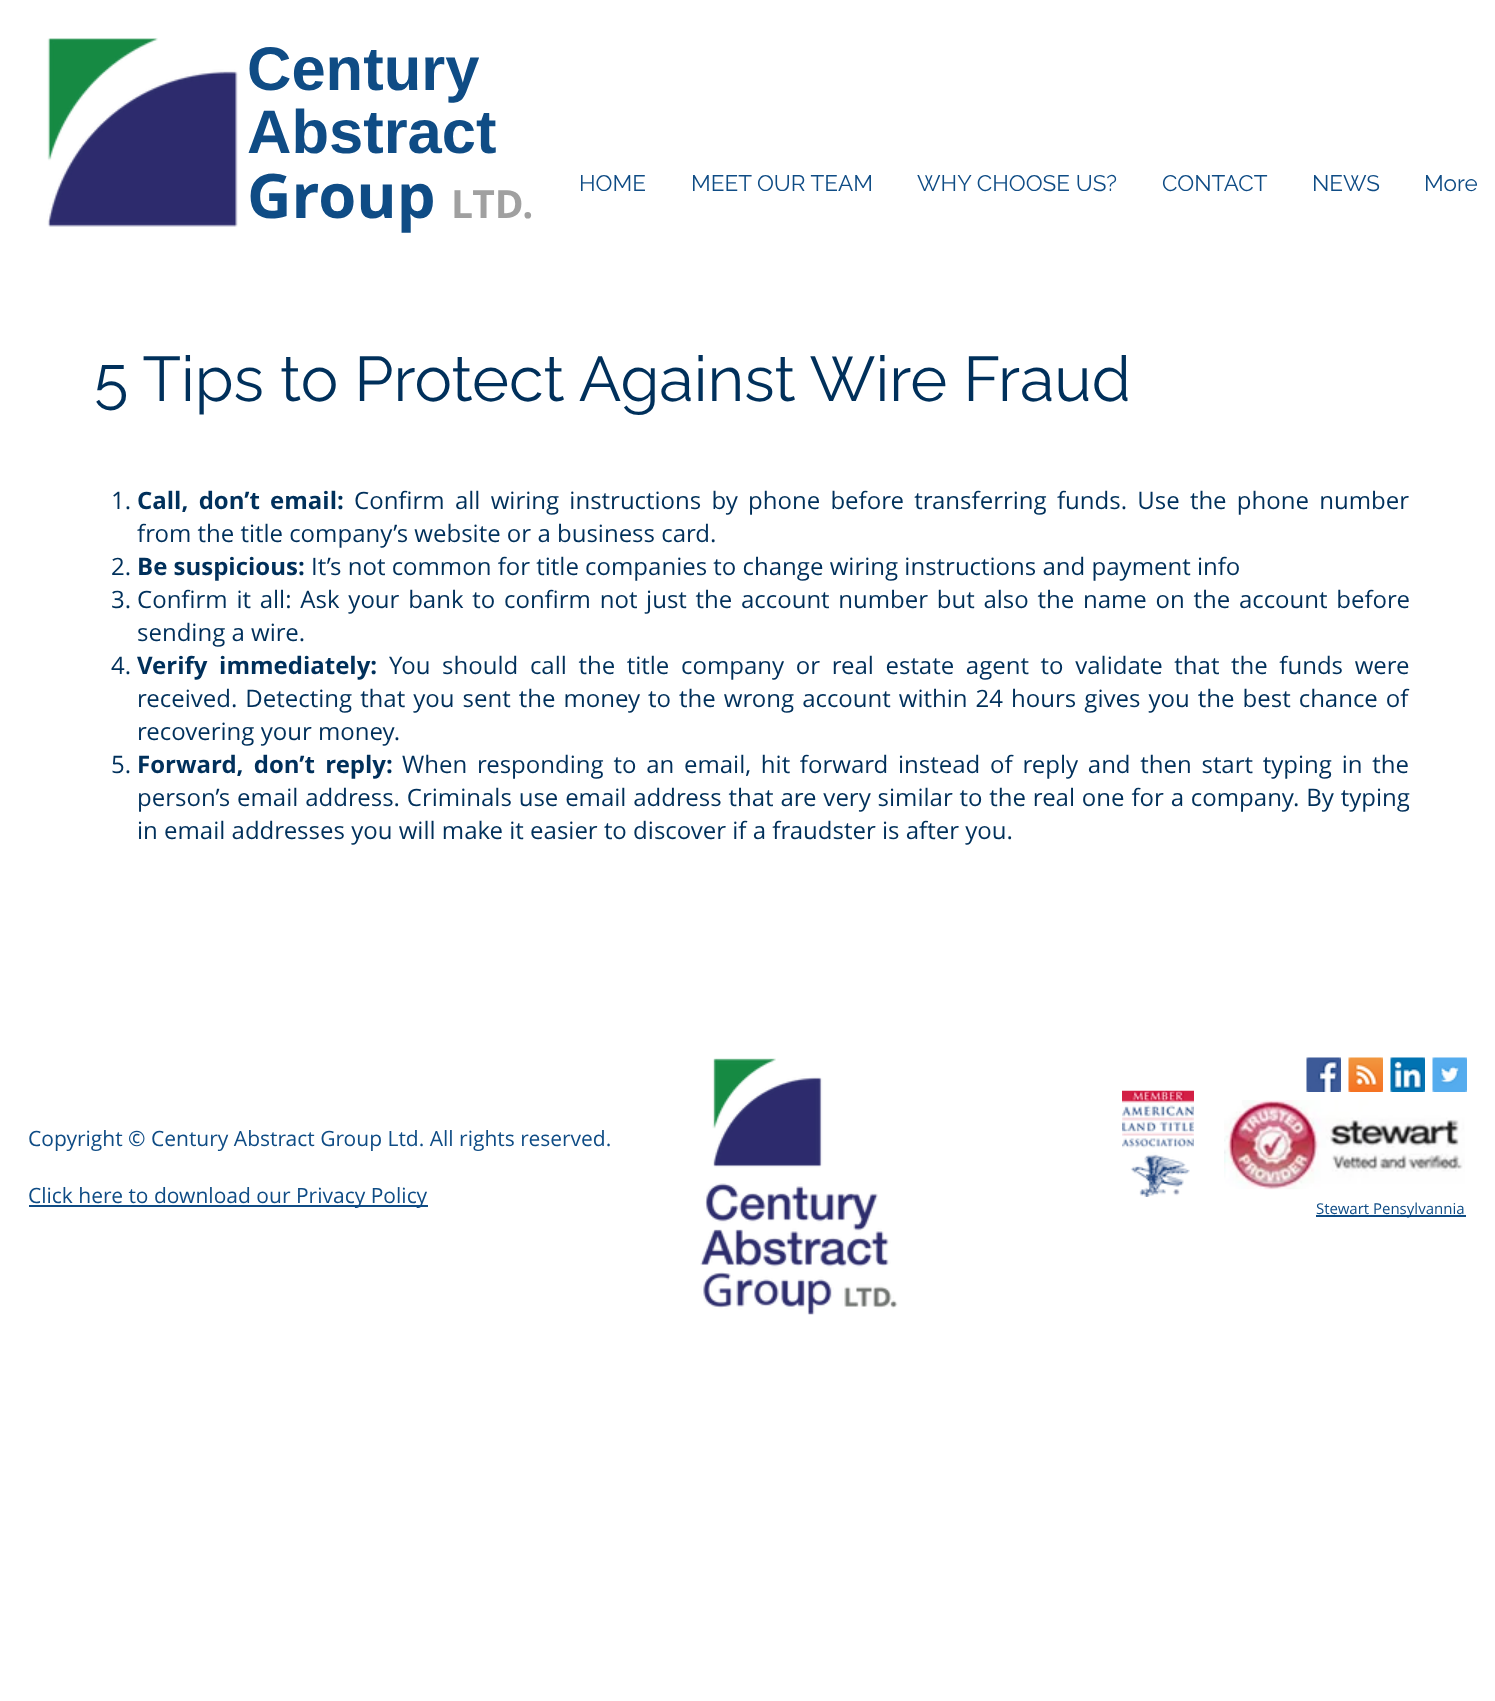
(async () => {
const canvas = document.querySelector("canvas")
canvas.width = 1495
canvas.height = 1701
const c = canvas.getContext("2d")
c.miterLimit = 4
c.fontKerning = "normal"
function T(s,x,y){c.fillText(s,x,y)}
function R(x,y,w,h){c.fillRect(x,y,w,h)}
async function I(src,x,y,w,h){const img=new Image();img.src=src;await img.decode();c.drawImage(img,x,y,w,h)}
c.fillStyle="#fff"
R(0,0,1495,1701)
await I("1.png",47,38,191,189)
c.font="bold 61.5px Liberation Sans"
c.fillStyle="#0f4c85"
T("Century",247,90)
T("Abstract",247,153)
c.font="bold 61.5px Open Sans"
T("Group",247,218)
c.font="bold 39px Open Sans"
c.fillStyle="#a0a0a0"
T("LTD.",451,218)
c.font="22.5px Raleway"
c.fillStyle="#0f4c85"
T("HOME",579,191)
T("MEET OUR TEAM",691,191)
T("WHY CHOOSE US?",917,191)
T("CONTACT",1162,191)
T("NEWS",1312,191)
T("More",1424,191)
c.font="63px Raleway"
c.fillStyle="#00305b"
T("5 Tips to Protect Against Wire Fraud",94,401)
c.font="24px Open Sans"
T("1.",111,509)
c.wordSpacing="4px"
c.font="bold 24px Open Sans"
T("Call, don’t email:",137,509)
c.font="24px Open Sans"
T("Confirm all wiring instructions by phone before transferring funds. Use the phone number",354,509)
c.wordSpacing="0px"
T("from the title company’s website or a business card.",137,542)
T("2.",111,575)
c.font="bold 24px Open Sans"
T("Be suspicious:",137,575)
c.font="24px Open Sans"
T("It’s not common for title companies to change wiring instructions and payment info",311,575)
T("3.",111,608)
c.wordSpacing="2.5px"
T("Confirm it all: Ask your bank to confirm not just the account number but also the name on the account before",137,608)
c.wordSpacing="0px"
T("sending a wire.",137,641)
T("4.",111,674)
c.wordSpacing="5.4px"
c.font="bold 24px Open Sans"
T("Verify immediately:",137,674)
c.font="24px Open Sans"
T("You should call the title company or real estate agent to validate that the funds were",389,674)
c.wordSpacing="1.8px"
T("received. Detecting that you sent the money to the wrong account within 24 hours gives you the best chance of",137,707)
c.wordSpacing="0px"
T("recovering your money.",137,740)
T("5.",111,773)
c.wordSpacing="4px"
c.font="bold 24px Open Sans"
T("Forward, don’t reply:",137,773)
c.wordSpacing="3.5px"
c.font="24px Open Sans"
T("When responding to an email, hit forward instead of reply and then start typing in the",402,773)
c.wordSpacing="0.6px"
T("person’s email address. Criminals use email address that are very similar to the real one for a company. By typing",137,806)
c.wordSpacing="0px"
T("in email addresses you will make it easier to discover if a fraudster is after you.",137,839)
await I("2.png",700,1058,198,257)
await I("3.png",1122,1090,72,107)
await I("4.png",1306,1057,35,35)
await I("5.png",1348,1057,35,35)
await I("6.png",1390,1057,35,35)
await I("7.png",1432,1057,35,35)
c.font="21px Open Sans"
c.fillStyle="#0f4c85"
T("Copyright © Century Abstract Group Ltd. All rights reserved.",28,1146)
R(29,1205,399,2)
T("Click here to download our Privacy Policy",28,1203)
await I("8.png",1224,1100,241,90)
R(1316,1215,150,2)
c.font="15px Open Sans"
T("Stewart Pensylvannia",1316,1214)
})()
